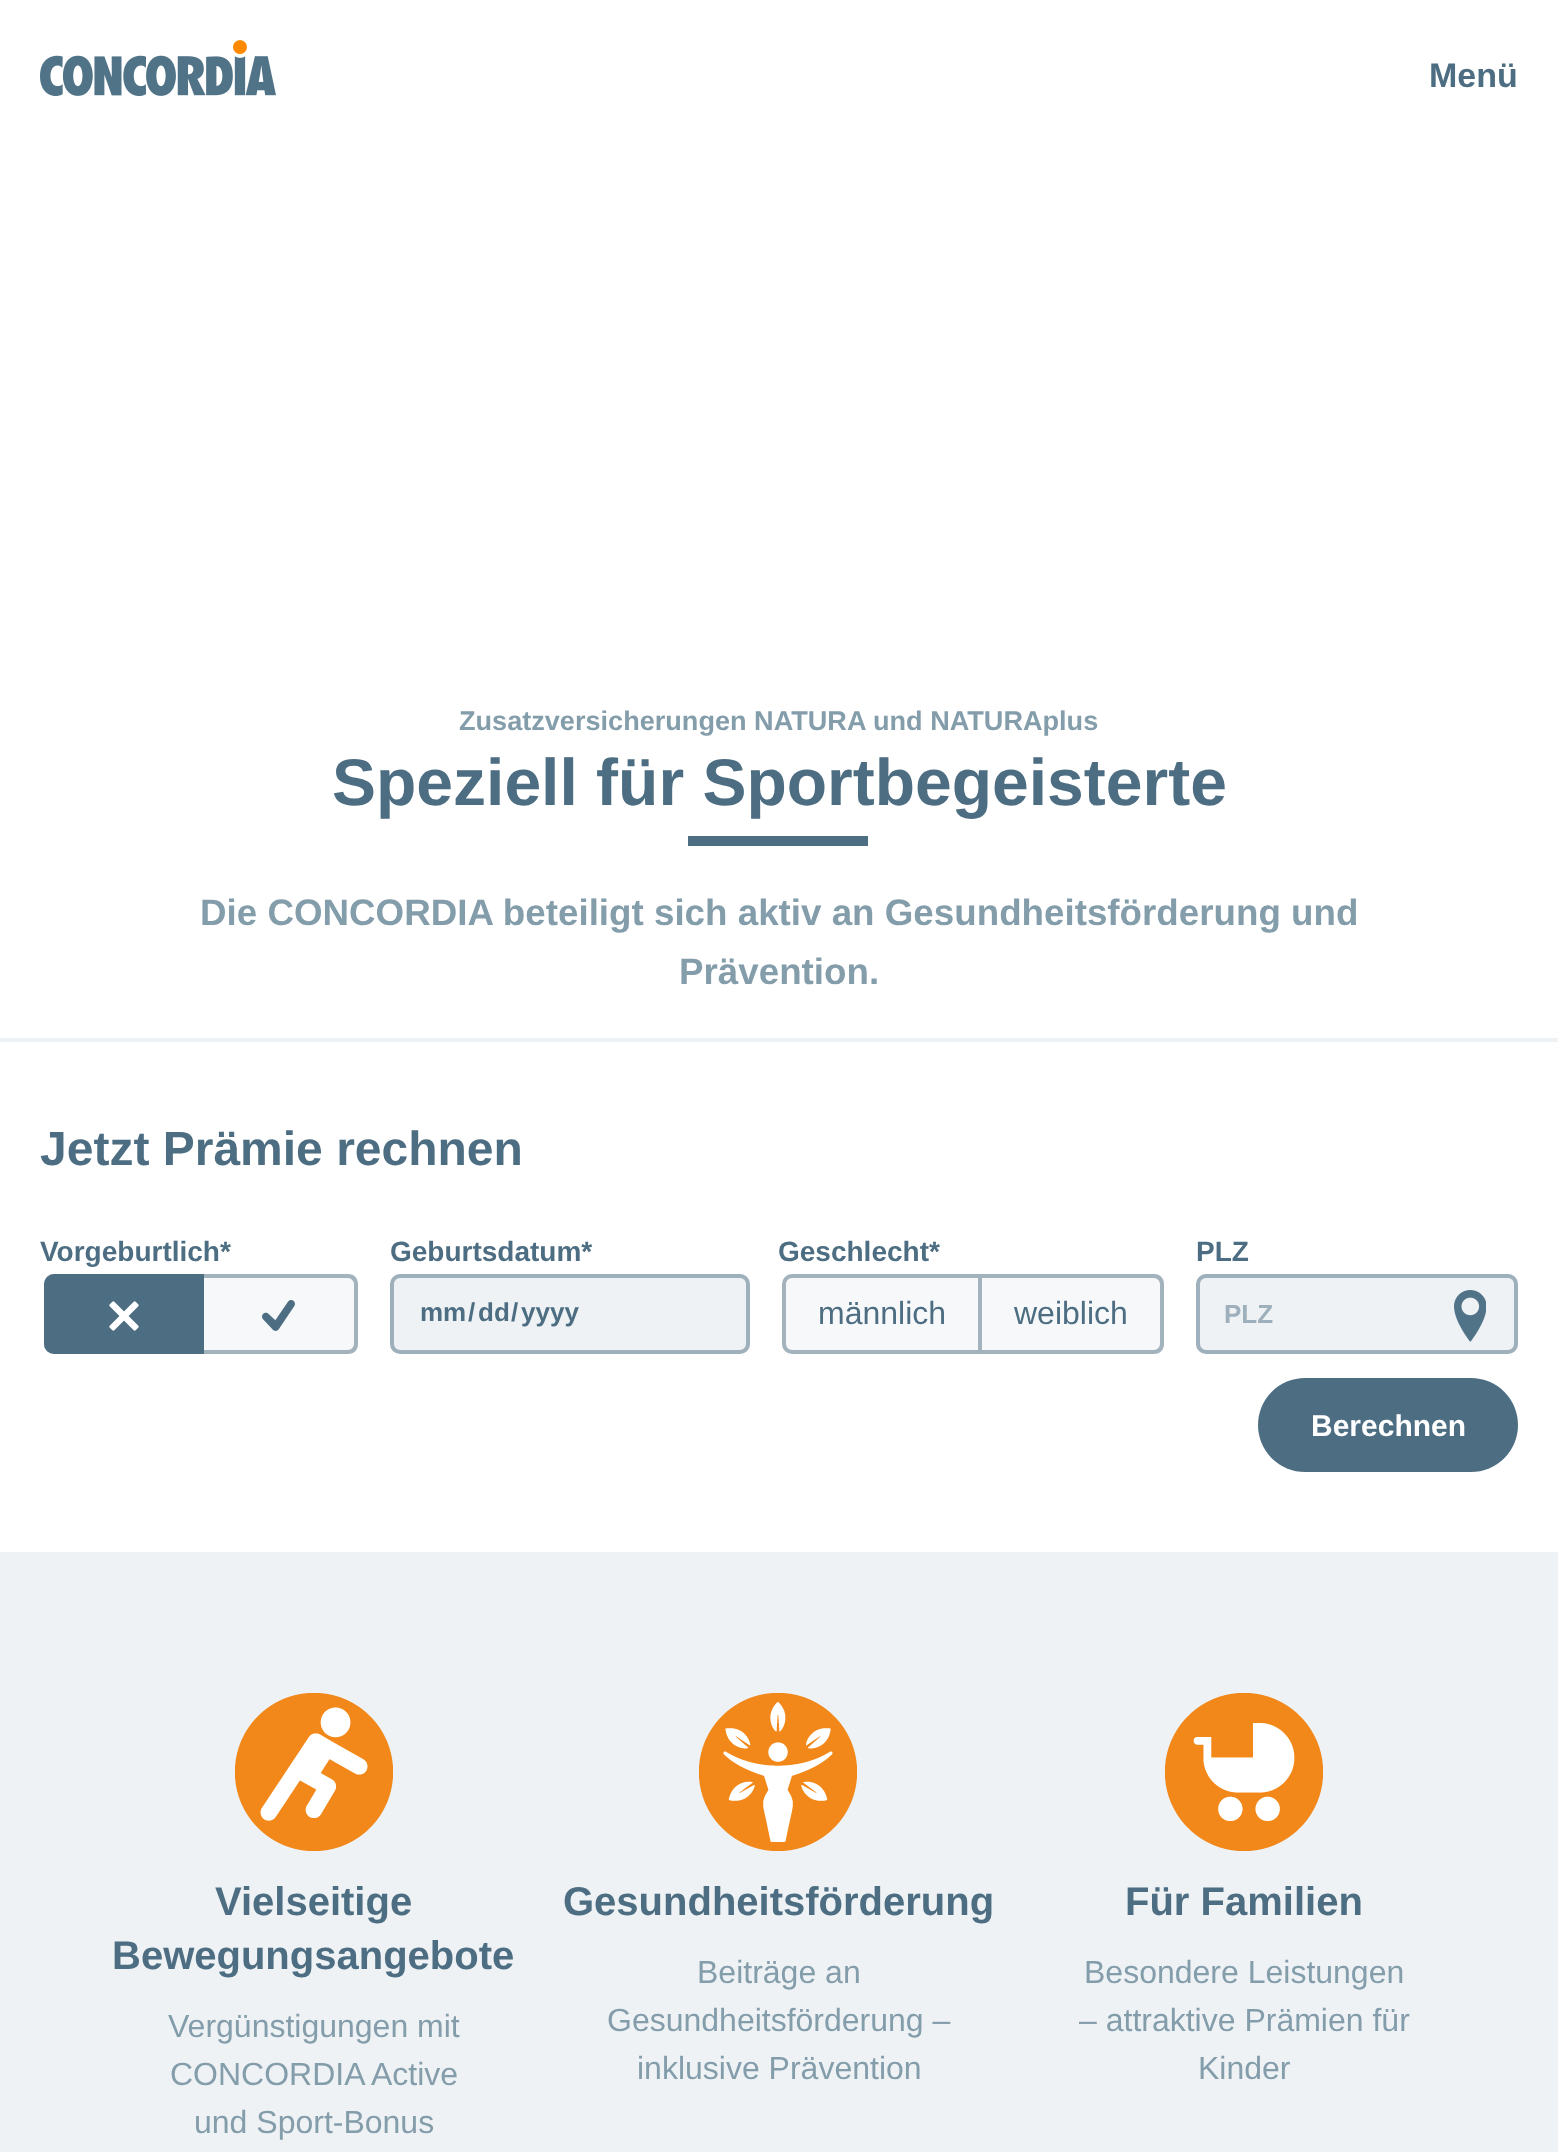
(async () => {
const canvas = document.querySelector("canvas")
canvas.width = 1558
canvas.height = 2155
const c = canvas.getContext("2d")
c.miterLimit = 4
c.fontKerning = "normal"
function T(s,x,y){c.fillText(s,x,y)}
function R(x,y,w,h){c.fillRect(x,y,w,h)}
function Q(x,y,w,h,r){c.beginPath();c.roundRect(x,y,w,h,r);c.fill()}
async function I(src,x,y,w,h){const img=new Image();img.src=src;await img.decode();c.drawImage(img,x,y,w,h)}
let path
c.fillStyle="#fff"
R(0,0,1558,2155)
await I("1.png",40,40,236,56)
c.font="bold 34px Liberation Sans"
c.fillStyle="#4d6e82"
T("Menü",1429,87)
c.font="bold 27.1px Liberation Sans"
c.fillStyle="#849dab"
T("Zusatzversicherungen NATURA und NATURAplus",459,730)
c.font="bold 66px Liberation Sans"
c.fillStyle="#4d6e82"
T("Speziell für Sportbegeisterte",332,805)
R(688,836,180,10)
c.font="bold 36.75px Liberation Sans"
c.fillStyle="#849dab"
T("Die CONCORDIA beteiligt sich aktiv an Gesundheitsförderung und",200,925)
T("Prävention.",679,984)
c.fillStyle="#eef2f5"
R(0,1038,1558,4)
c.font="bold 48px Liberation Sans"
c.fillStyle="#4d6e82"
T("Jetzt Prämie rechnen",40,1165)
c.font="bold 28px Liberation Sans"
T("Vorgeburtlich*",40,1261)
c.beginPath()
c.roundRect(44,1274,160,80,[10,0,0,10])
c.fill()
c.beginPath()
c.roundRect(46,1276,156,76,[8,0,0,8])
c.strokeStyle="#4d6e8280"
c.lineWidth=4
c.stroke()
await I("2.png",109,1301,30,30)
c.fillStyle="#f7f8fa"
c.beginPath()
c.roundRect(204,1274,154,80,[0,10,10,0])
c.fill()
c.fillStyle="#4d6e8280"
path = new Path2D("M204 1274h144c6 0 10 4 10 10v60c0 6-4 10-10 10h-144zm0 4h144c3 0 6 3 6 6v60c0 3-3 6-6 6h-144z")
c.fill(path,"evenodd")
await I("3.png",262,1300,33,31)
c.fillStyle="#4d6e82"
T("Geburtsdatum*",390,1261)
c.fillStyle="#eef2f5"
Q(390,1274,360,80,10)
c.beginPath()
c.roundRect(392,1276,356,76,8)
c.stroke()
c.font="bold 26px Liberation Sans"
c.fillStyle="#4d6e82"
T("mm",420,1321)
T("/",468,1321)
T("dd",478,1321)
T("/",511,1321)
T("yyyy",521,1321)
c.font="bold 28px Liberation Sans"
T("Geschlecht*",778,1261)
c.fillStyle="#f7f8fa"
c.beginPath()
c.roundRect(782,1274,200,80,[10,0,0,10])
c.fill()
c.beginPath()
c.roundRect(784,1276,196,76,[8,0,0,8])
c.stroke()
c.font="32px Liberation Sans"
c.fillStyle="#4d6e82"
T("männlich",818,1324)
c.fillStyle="#f7f8fa"
c.beginPath()
c.roundRect(982,1274,182,80,[0,10,10,0])
c.fill()
c.fillStyle="#4d6e8280"
path = new Path2D("M982 1274h172c6 0 10 4 10 10v60c0 6-4 10-10 10h-172zm0 4h172c3 0 6 3 6 6v60c0 3-3 6-6 6h-172z")
c.fill(path,"evenodd")
c.fillStyle="#4d6e82"
T("weiblich",1014,1324)
c.font="bold 28px Liberation Sans"
T("PLZ",1196,1261)
c.fillStyle="#eef2f5"
Q(1196,1274,322,80,10)
c.beginPath()
c.roundRect(1198,1276,318,76,8)
c.stroke()
c.font="bold 26px Liberation Sans"
c.fillStyle="#9eb0bc"
T("PLZ",1224,1323)
await I("4.png",1454,1290,32,52)
c.fillStyle="#4d6e82"
Q(1258,1378,260,94,47)
c.font="bold 30px Liberation Sans"
c.fillStyle="#fff"
T("Berechnen",1311,1436)
c.fillStyle="#eef2f5"
R(0,1552,1558,600)
await I("5.png",234,1693,159,158)
c.font="bold 40px Liberation Sans"
c.fillStyle="#4d6e82"
T("Vielseitige",215,1915)
T("Bewegungsangebote",112,1969)
c.font="32px Liberation Sans"
c.fillStyle="#849dab"
T("Vergünstigungen mit",168,2037)
T("CONCORDIA Active",170,2085)
T("und Sport-Bonus",194,2133)
await I("6.png",698,1693,159,158)
c.font="bold 40px Liberation Sans"
c.fillStyle="#4d6e82"
T("Gesundheitsförderung",563,1915)
c.font="32px Liberation Sans"
c.fillStyle="#849dab"
T("Beiträge an",697,1983)
T("Gesundheitsförderung –",607,2031)
T("inklusive Prävention",637,2079)
await I("7.png",1164,1693,159,158)
c.font="bold 40px Liberation Sans"
c.fillStyle="#4d6e82"
T("Für Familien",1125,1915)
c.font="32px Liberation Sans"
c.fillStyle="#849dab"
T("Besondere Leistungen",1084,1983)
T("– attraktive Prämien für",1079,2031)
T("Kinder",1198,2079)
})()
